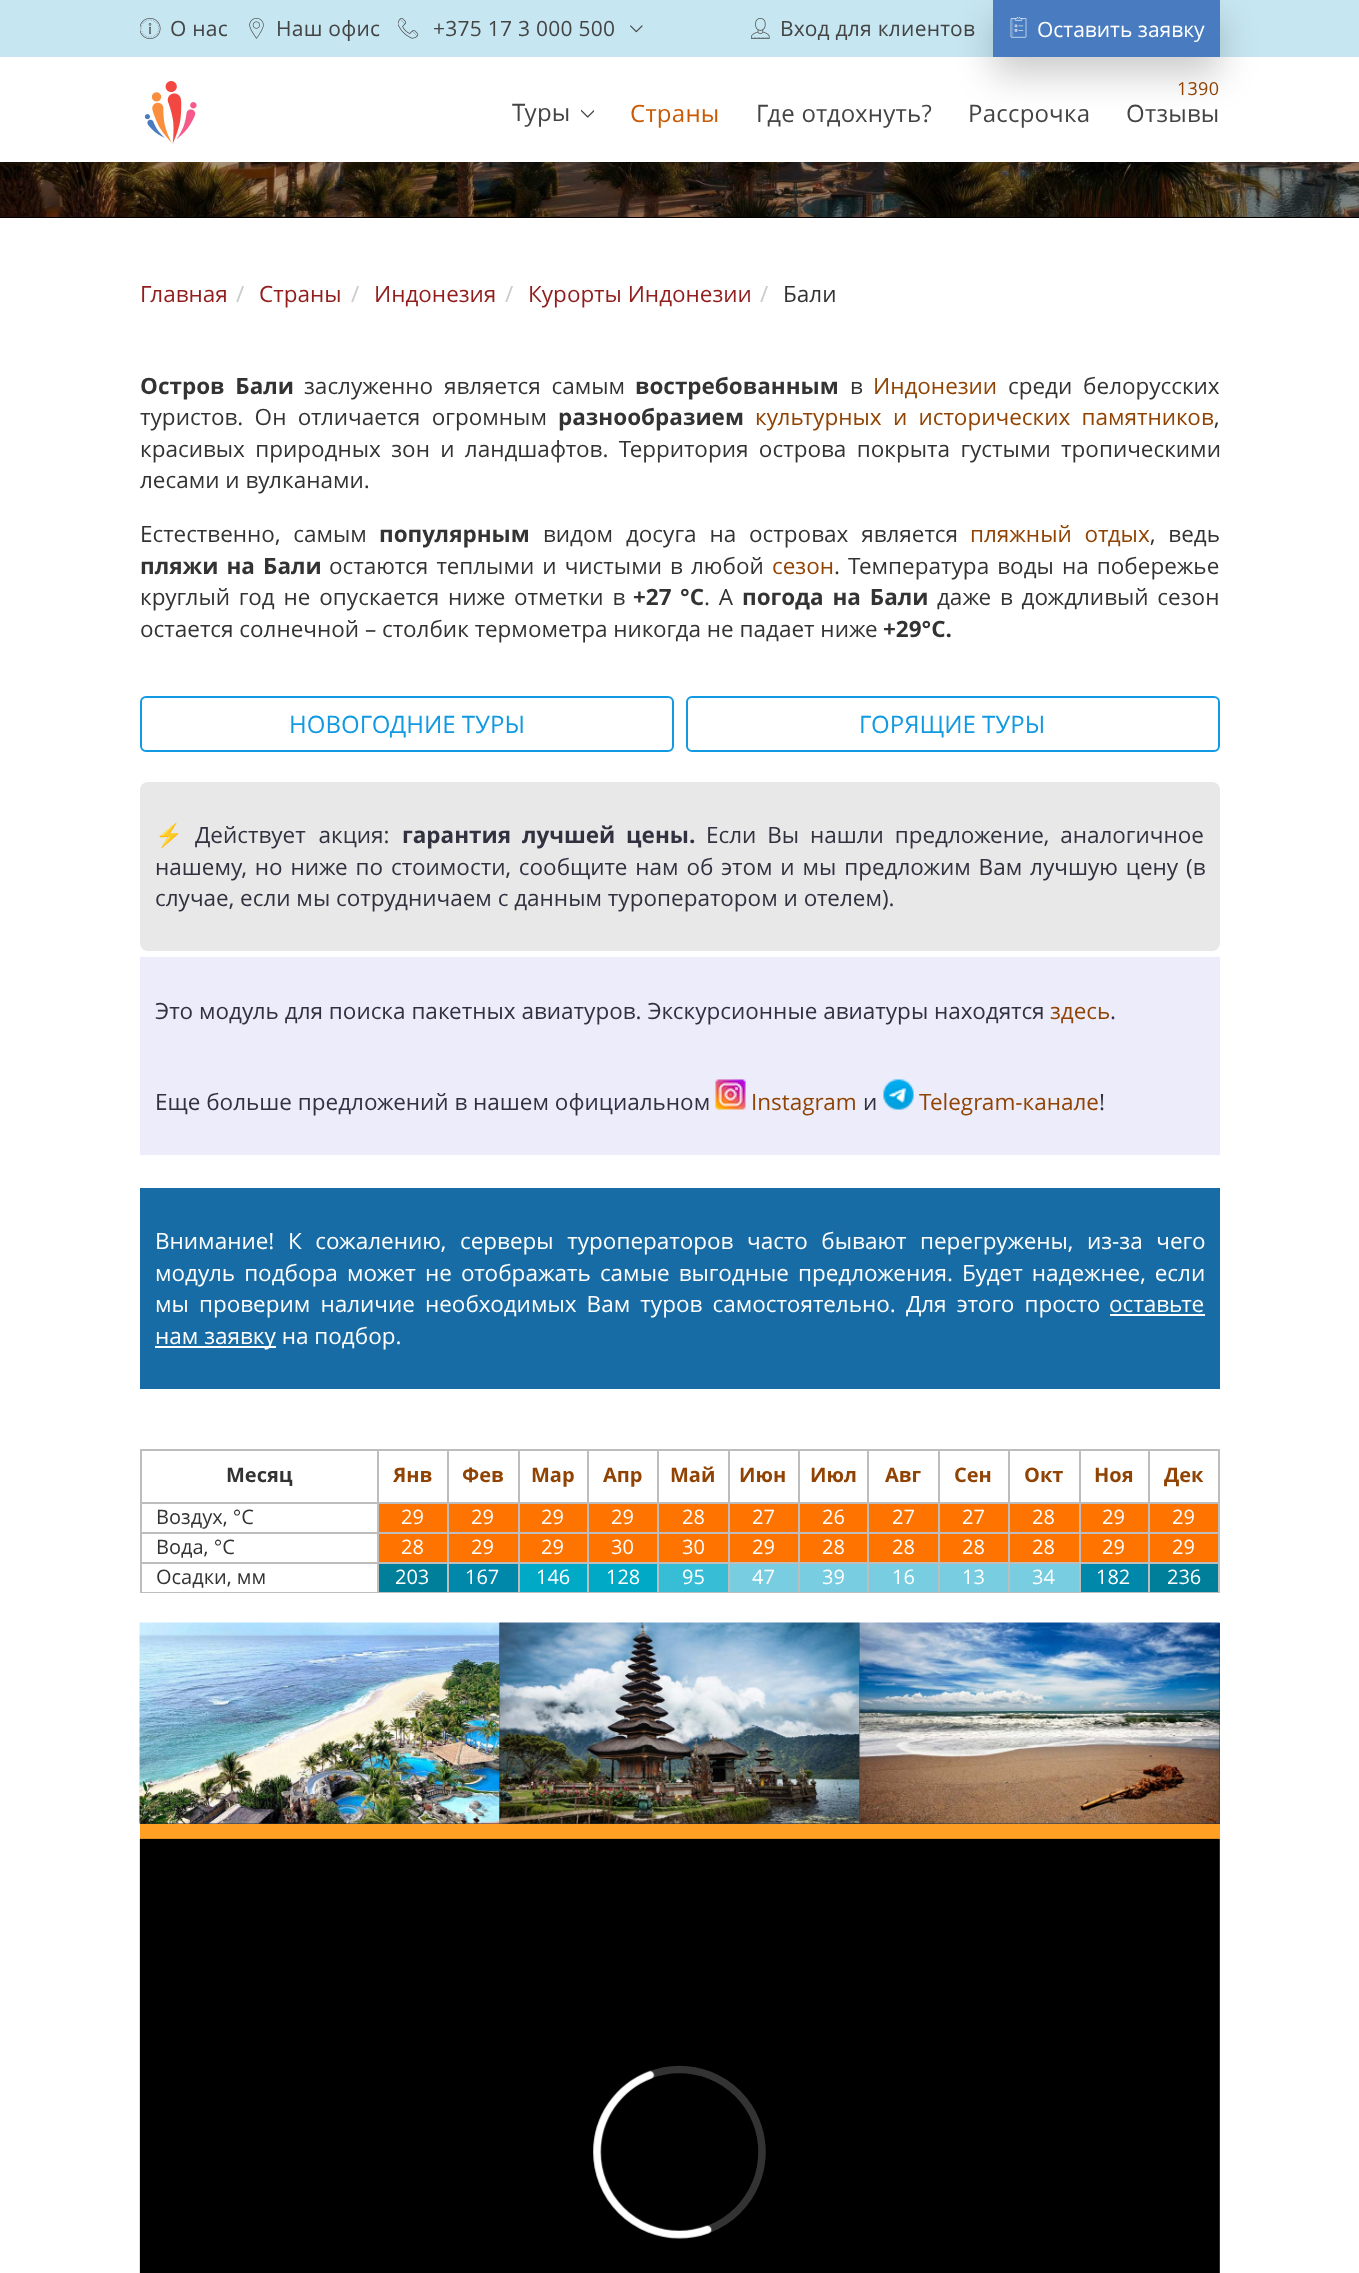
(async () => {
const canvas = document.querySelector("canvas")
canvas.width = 1359
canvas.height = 2273
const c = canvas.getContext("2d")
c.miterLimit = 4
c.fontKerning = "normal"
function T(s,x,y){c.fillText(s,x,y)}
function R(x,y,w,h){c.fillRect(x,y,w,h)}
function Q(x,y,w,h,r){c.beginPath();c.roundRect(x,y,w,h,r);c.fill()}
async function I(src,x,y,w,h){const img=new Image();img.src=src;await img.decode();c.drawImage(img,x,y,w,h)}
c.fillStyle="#fff"
R(0,0,1359,2273)
await I("9.png",0,162,1359,55)
c.fillStyle="#0000001a"
c.filter="blur(7.5px)"
c.beginPath()
c.rect(0,3,1359,162)
c.fill()
c.filter="none"
c.fillStyle="#fff"
R(0,57,1359,105)
c.fillStyle="#c6e6f1"
R(0,0,1359,57)
await I("1.png",140,18,21,21)
c.letterSpacing="0.25px"
c.font="21px Open Sans"
c.fillStyle="#444"
T("О нас",170,36)
await I("2.png",249,18,15,21)
T("Наш офис",276,36)
await I("3.png",398,18,21,21)
T("+375 17 3 000 500",433,36)
await I("4.png",630,25,13,8)
await I("5.png",751,18,19,21)
T("Вход для клиентов",780,36)
c.fillStyle="#00000033"
c.filter="blur(18px)"
c.beginPath()
c.rect(993,18,227,57)
c.fill()
c.filter="none"
c.fillStyle="#487bbf"
R(993,0,227,57)
await I("6.png",1010,17,17,21)
c.letterSpacing="0px"
c.fillStyle="#fff"
T("Оставить заявку",1037,37)
await I("7.png",144,81,53,63)
c.letterSpacing="0.25px"
c.font="24px Open Sans"
c.fillStyle="#444"
T("Туры",512,121)
await I("8.png",581,109,13,9)
c.fillStyle="#c95b06"
T("Страны",630,122)
c.fillStyle="#444"
T("Где отдохнуть?",756,122)
T("Рассрочка",968,122)
c.font="18px Open Sans"
c.fillStyle="#904303"
T("1390",1177,95)
c.font="24px Open Sans"
c.fillStyle="#444"
T("Отзывы",1126,122)
c.fillStyle="#000"
R(0,217,1359,1)
c.letterSpacing="0px"
c.font="22.5px Open Sans"
c.fillStyle="#911d1d"
T("Главная",140,302)
c.fillStyle="#ccc"
T("/",236,302)
c.fillStyle="#911d1d"
T("Страны",259,302)
c.fillStyle="#ccc"
T("/",351,302)
c.fillStyle="#911d1d"
T("Индонезия",374,302)
c.fillStyle="#ccc"
T("/",505,302)
c.fillStyle="#911d1d"
T("Курорты Индонезии",528,302)
c.fillStyle="#ccc"
T("/",760,302)
c.fillStyle="#333"
T("Бали",783,302)
c.wordSpacing="5px"
c.font="bold 22.5px Open Sans"
T("Остров Бали",140,394)
c.font="22.5px Open Sans"
T("заслуженно является самым",304,394)
c.wordSpacing="0px"
c.font="bold 22.5px Open Sans"
T("востребованным",635,394)
c.font="22.5px Open Sans"
T("в",850,394)
c.fillStyle="#904303"
T("Индонезии",873,394)
c.wordSpacing="5px"
c.fillStyle="#333"
T("среди белорусских",1008,394)
c.wordSpacing="5.5px"
T("туристов. Он отличается огромным",140,425)
c.wordSpacing="0px"
c.font="bold 22.5px Open Sans"
T("разнообразием",558,425)
c.wordSpacing="5.5px"
c.font="22.5px Open Sans"
c.fillStyle="#904303"
T("культурных и исторических памятников",755,425)
c.wordSpacing="0px"
c.fillStyle="#333"
T(",",1214,425)
c.wordSpacing="4.5px"
T("красивых природных зон и ландшафтов. Территория острова покрыта густыми тропическими",140,457)
c.wordSpacing="0px"
T("лесами и вулканами.",140,488)
c.wordSpacing="7px"
T("Естественно, самым",140,542)
c.wordSpacing="0px"
c.font="bold 22.5px Open Sans"
T("популярным",379,542)
c.wordSpacing="7px"
c.font="22.5px Open Sans"
T("видом досуга на островах является",543,542)
c.fillStyle="#904303"
T("пляжный отдых",970,542)
c.fillStyle="#333"
T(", ведь",1150,542)
c.wordSpacing="2.25px"
c.font="bold 22.5px Open Sans"
T("пляжи на Бали",140,574)
c.font="22.5px Open Sans"
T("остаются теплыми и чистыми в любой",329,574)
c.wordSpacing="0px"
c.fillStyle="#904303"
T("сезон",772,574)
c.wordSpacing="2.25px"
c.fillStyle="#333"
T(". Температура воды на побережье",834,574)
c.wordSpacing="3px"
T("круглый год не опускается ниже отметки в",140,605)
c.wordSpacing="0px"
c.font="bold 22.5px Open Sans"
T("+27",633,605)
T("°C",680,605)
c.wordSpacing="3px"
c.font="22.5px Open Sans"
T(". А",704,605)
c.font="bold 22.5px Open Sans"
T("погода на Бали",742,605)
c.font="22.5px Open Sans"
T("даже в дождливый сезон",937,605)
c.wordSpacing="0px"
T("остается солнечной – столбик термометра никогда не падает ниже",140,637)
c.font="bold 22.5px Open Sans"
T("+29°C.",883,637)
c.beginPath()
c.roundRect(141,697,532,54,5)
c.strokeStyle="#119ae1"
c.lineWidth=2
c.stroke()
c.font="24px Open Sans"
c.fillStyle="#119ae1"
T("НОВОГОДНИЕ ТУРЫ",289,733)
c.beginPath()
c.roundRect(687,697,532,54,5)
c.stroke()
T("ГОРЯЩИЕ ТУРЫ",859,733)
c.fillStyle="#e8e8e8"
Q(140,782,1080,169,8)
c.font="22.5px Noto Color Emoji"
c.fillStyle="#313140"
T("⚡️",155,843)
c.wordSpacing="7px"
c.font="22.5px Open Sans"
T("Действует акция:",195,843)
c.wordSpacing="5px"
c.font="bold 22.5px Open Sans"
T("гарантия лучшей цены.",402,843)
c.font="22.5px Open Sans"
T("Если Вы нашли предложение, аналогичное",706,843)
c.wordSpacing="2px"
T("нашему, но ниже по стоимости, сообщите нам об этом и мы предложим Вам лучшую цену (в",155,875)
c.wordSpacing="0px"
T("случае, если мы сотрудничаем с данным туроператором и отелем).",155,906)
c.fillStyle="#ececfb"
R(140,957,1080,198)
c.fillStyle="#313140"
T("Это модуль для поиска пакетных авиатуров. Экскурсионные авиатуры находятся",155,1019)
c.fillStyle="#904303"
T("здесь",1050,1019)
c.fillStyle="#313140"
T(".",1110,1019)
T("Еще больше предложений в нашем официальном",155,1110)
await I("10.png",715,1079,31,31)
c.fillStyle="#904303"
T("Instagram",751,1110)
c.fillStyle="#313140"
T("и",863,1110)
await I("11.png",883,1079,31,31)
c.fillStyle="#904303"
T("Telegram-канале",919,1110)
c.fillStyle="#313140"
T("!",1099,1110)
c.fillStyle="#186ca5"
R(140,1188,1080,201)
c.wordSpacing="7.75px"
c.fillStyle="#fff"
T("Внимание! К сожалению, серверы туроператоров часто бывают перегружены, из-за чего",155,1249)
c.wordSpacing="3.25px"
T("модуль подбора может не отображать самые выгодные предложения. Будет надежнее, если",155,1281)
c.wordSpacing="4.25px"
T("мы проверим наличие необходимых Вам туров самостоятельно. Для этого просто",155,1312)
c.wordSpacing="0px"
T("оставьте",1109,1312)
R(1110,1314,95,2)
R(155,1346,121,2)
T("нам заявку на подбор.",155,1344)
c.fillStyle="#bdbdbd"
R(1148,1449,72,2)
R(1148,1502,72,2)
R(1148,1532,72,2)
R(1148,1562,72,2)
R(1218,1562,2,31)
R(1148,1592,72,1)
R(1148,1562,2,31)
R(1079,1562,70,2)
R(1148,1532,2,31)
R(1079,1532,70,2)
R(1148,1502,2,31)
R(1079,1502,70,2)
R(1148,1449,2,54)
R(1079,1449,70,2)
R(1079,1592,70,1)
R(1079,1562,2,31)
R(1008,1562,72,2)
R(1079,1532,2,31)
R(1008,1532,72,2)
R(1079,1502,2,31)
R(1008,1502,72,2)
R(1079,1449,2,54)
R(1008,1449,72,2)
R(1008,1592,72,1)
R(1008,1562,2,31)
R(938,1562,72,2)
R(1008,1532,2,31)
R(938,1532,72,2)
R(1008,1502,2,31)
R(938,1502,72,2)
R(1008,1449,2,54)
R(938,1449,72,2)
R(938,1592,72,1)
R(938,1562,2,31)
R(867,1562,72,2)
R(938,1532,2,31)
R(867,1532,72,2)
R(938,1502,2,31)
R(867,1502,72,2)
R(938,1449,2,54)
R(867,1449,72,2)
R(867,1592,72,1)
R(867,1562,2,31)
R(798,1562,71,2)
R(867,1532,2,31)
R(798,1532,71,2)
R(867,1502,2,31)
R(798,1502,71,2)
R(867,1449,2,54)
R(798,1449,71,2)
R(798,1592,71,1)
R(798,1562,2,31)
R(728,1562,72,2)
R(798,1532,2,31)
R(728,1532,72,2)
R(798,1502,2,31)
R(728,1502,72,2)
R(798,1449,2,54)
R(728,1449,72,2)
R(728,1592,72,1)
R(728,1562,2,31)
R(657,1562,72,2)
R(728,1532,2,31)
R(657,1532,72,2)
R(728,1502,2,31)
R(657,1502,72,2)
R(728,1449,2,54)
R(657,1449,72,2)
R(657,1592,72,1)
R(657,1562,2,31)
R(587,1562,72,2)
R(657,1532,2,31)
R(587,1532,72,2)
R(657,1502,2,31)
R(587,1502,72,2)
R(657,1449,2,54)
R(587,1449,72,2)
R(587,1592,72,1)
R(587,1562,2,31)
R(518,1562,70,2)
R(587,1532,2,31)
R(518,1532,70,2)
R(587,1502,2,31)
R(518,1502,70,2)
R(587,1449,2,54)
R(518,1449,70,2)
R(518,1592,70,1)
R(518,1562,2,31)
R(447,1562,72,2)
R(518,1532,2,31)
R(447,1532,72,2)
R(518,1502,2,31)
R(447,1502,72,2)
R(518,1449,2,54)
R(447,1449,72,2)
R(447,1592,72,1)
R(447,1562,2,31)
R(377,1562,72,2)
R(447,1532,2,31)
R(377,1532,72,2)
R(447,1502,2,31)
R(377,1502,72,2)
R(447,1449,2,54)
R(377,1449,72,2)
R(377,1592,72,1)
R(377,1562,2,31)
R(140,1562,238,2)
R(377,1532,2,31)
R(140,1532,238,2)
R(377,1502,2,31)
R(140,1502,238,2)
R(377,1449,2,54)
R(140,1449,238,2)
R(140,1592,238,1)
R(140,1562,2,31)
R(140,1532,2,31)
R(140,1502,2,31)
R(140,1449,2,54)
c.font="bold 20px Open Sans"
c.fillStyle="#333"
T("Месяц",226,1482)
c.fillStyle="#904303"
T("Янв",393,1482)
T("Фев",462,1482)
T("Мар",531,1482)
T("Апр",603,1482)
T("Май",670,1482)
T("Июн",739,1482)
T("Июл",810,1482)
T("Авг",885,1482)
T("Сен",954,1482)
T("Окт",1024,1482)
T("Ноя",1094,1482)
c.fillStyle="#bdbdbd"
R(1218,1532,2,31)
R(1218,1502,2,31)
R(1218,1449,2,54)
c.fillStyle="#904303"
T("Дек",1164,1482)
c.font="20px Open Sans"
c.fillStyle="#333"
T("Воздух, °С",156,1524)
c.fillStyle="#ff7301"
R(379,1504,68,28)
c.fillStyle="#fff"
T("29",401,1524)
c.fillStyle="#ff7301"
R(449,1504,69,28)
c.fillStyle="#fff"
T("29",471,1524)
c.fillStyle="#ff7301"
R(520,1504,67,28)
c.fillStyle="#fff"
T("29",541,1524)
c.fillStyle="#ff7301"
R(589,1504,68,28)
c.fillStyle="#fff"
T("29",611,1524)
c.fillStyle="#ff7301"
R(659,1504,69,28)
c.fillStyle="#fff"
T("28",682,1524)
c.fillStyle="#ff7301"
R(730,1504,68,28)
c.fillStyle="#fff"
T("27",752,1524)
c.fillStyle="#ff7301"
R(800,1504,67,28)
c.fillStyle="#fff"
T("26",822,1524)
c.fillStyle="#ff7301"
R(869,1504,69,28)
c.fillStyle="#fff"
T("27",892,1524)
c.fillStyle="#ff7301"
R(940,1504,68,28)
c.fillStyle="#fff"
T("27",962,1524)
c.fillStyle="#ff7301"
R(1010,1504,69,28)
c.fillStyle="#fff"
T("28",1032,1524)
c.fillStyle="#ff7301"
R(1081,1504,67,28)
c.fillStyle="#fff"
T("29",1102,1524)
c.fillStyle="#ff7301"
R(1150,1504,68,28)
c.fillStyle="#fff"
T("29",1172,1524)
c.fillStyle="#333"
T("Вода, °С",156,1554)
c.fillStyle="#ff7301"
R(379,1534,68,28)
c.fillStyle="#fff"
T("28",401,1554)
c.fillStyle="#ff7301"
R(449,1534,69,28)
c.fillStyle="#fff"
T("29",471,1554)
c.fillStyle="#ff7301"
R(520,1534,67,28)
c.fillStyle="#fff"
T("29",541,1554)
c.fillStyle="#ff7301"
R(589,1534,68,28)
c.fillStyle="#fff"
T("30",611,1554)
c.fillStyle="#ff7301"
R(659,1534,69,28)
c.fillStyle="#fff"
T("30",682,1554)
c.fillStyle="#ff7301"
R(730,1534,68,28)
c.fillStyle="#fff"
T("29",752,1554)
c.fillStyle="#ff7301"
R(800,1534,67,28)
c.fillStyle="#fff"
T("28",822,1554)
c.fillStyle="#ff7301"
R(869,1534,69,28)
c.fillStyle="#fff"
T("28",892,1554)
c.fillStyle="#ff7301"
R(940,1534,68,28)
c.fillStyle="#fff"
T("28",962,1554)
c.fillStyle="#ff7301"
R(1010,1534,69,28)
c.fillStyle="#fff"
T("28",1032,1554)
c.fillStyle="#ff7301"
R(1081,1534,67,28)
c.fillStyle="#fff"
T("29",1102,1554)
c.fillStyle="#ff7301"
R(1150,1534,68,28)
c.fillStyle="#fff"
T("29",1172,1554)
c.fillStyle="#333"
T("Осадки, мм",156,1584)
c.fillStyle="#007f9a"
R(379,1564,68,28)
c.fillStyle="#fff"
T("203",395,1584)
c.fillStyle="#08a"
R(449,1564,69,28)
c.fillStyle="#fff"
T("167",465,1584)
c.fillStyle="#00a9c6"
R(520,1564,67,28)
c.fillStyle="#fff"
T("146",536,1584)
c.fillStyle="#00a9c6"
R(589,1564,68,28)
c.fillStyle="#fff"
T("128",606,1584)
c.fillStyle="#37bdd6"
R(659,1564,69,28)
c.fillStyle="#fff"
T("95",682,1584)
c.fillStyle="#78cde1"
R(730,1564,68,28)
c.fillStyle="#fff"
T("47",752,1584)
c.fillStyle="#78cde1"
R(800,1564,67,28)
c.fillStyle="#fff"
T("39",822,1584)
c.fillStyle="#78cde1"
R(869,1564,69,28)
c.fillStyle="#fff"
T("16",892,1584)
c.fillStyle="#78cde1"
R(940,1564,68,28)
c.fillStyle="#fff"
T("13",962,1584)
c.fillStyle="#78cde1"
R(1010,1564,69,28)
c.fillStyle="#fff"
T("34",1032,1584)
c.fillStyle="#08a"
R(1081,1564,67,28)
c.fillStyle="#fff"
T("182",1096,1584)
c.fillStyle="#007f9a"
R(1150,1564,68,28)
c.fillStyle="#fff"
T("236",1167,1584)
c.fillStyle="#353535"
R(140,1623,1080,201)
await I("12.png",139,1622,361,202)
await I("13.png",499,1622,361,202)
await I("14.png",859,1622,361,202)
c.fillStyle="#ffa024"
R(140,1824,1080,15)
c.fillStyle="#353535"
R(1219,1839,1,434)
await I("15.png",139,1838,1081,435)
})()
